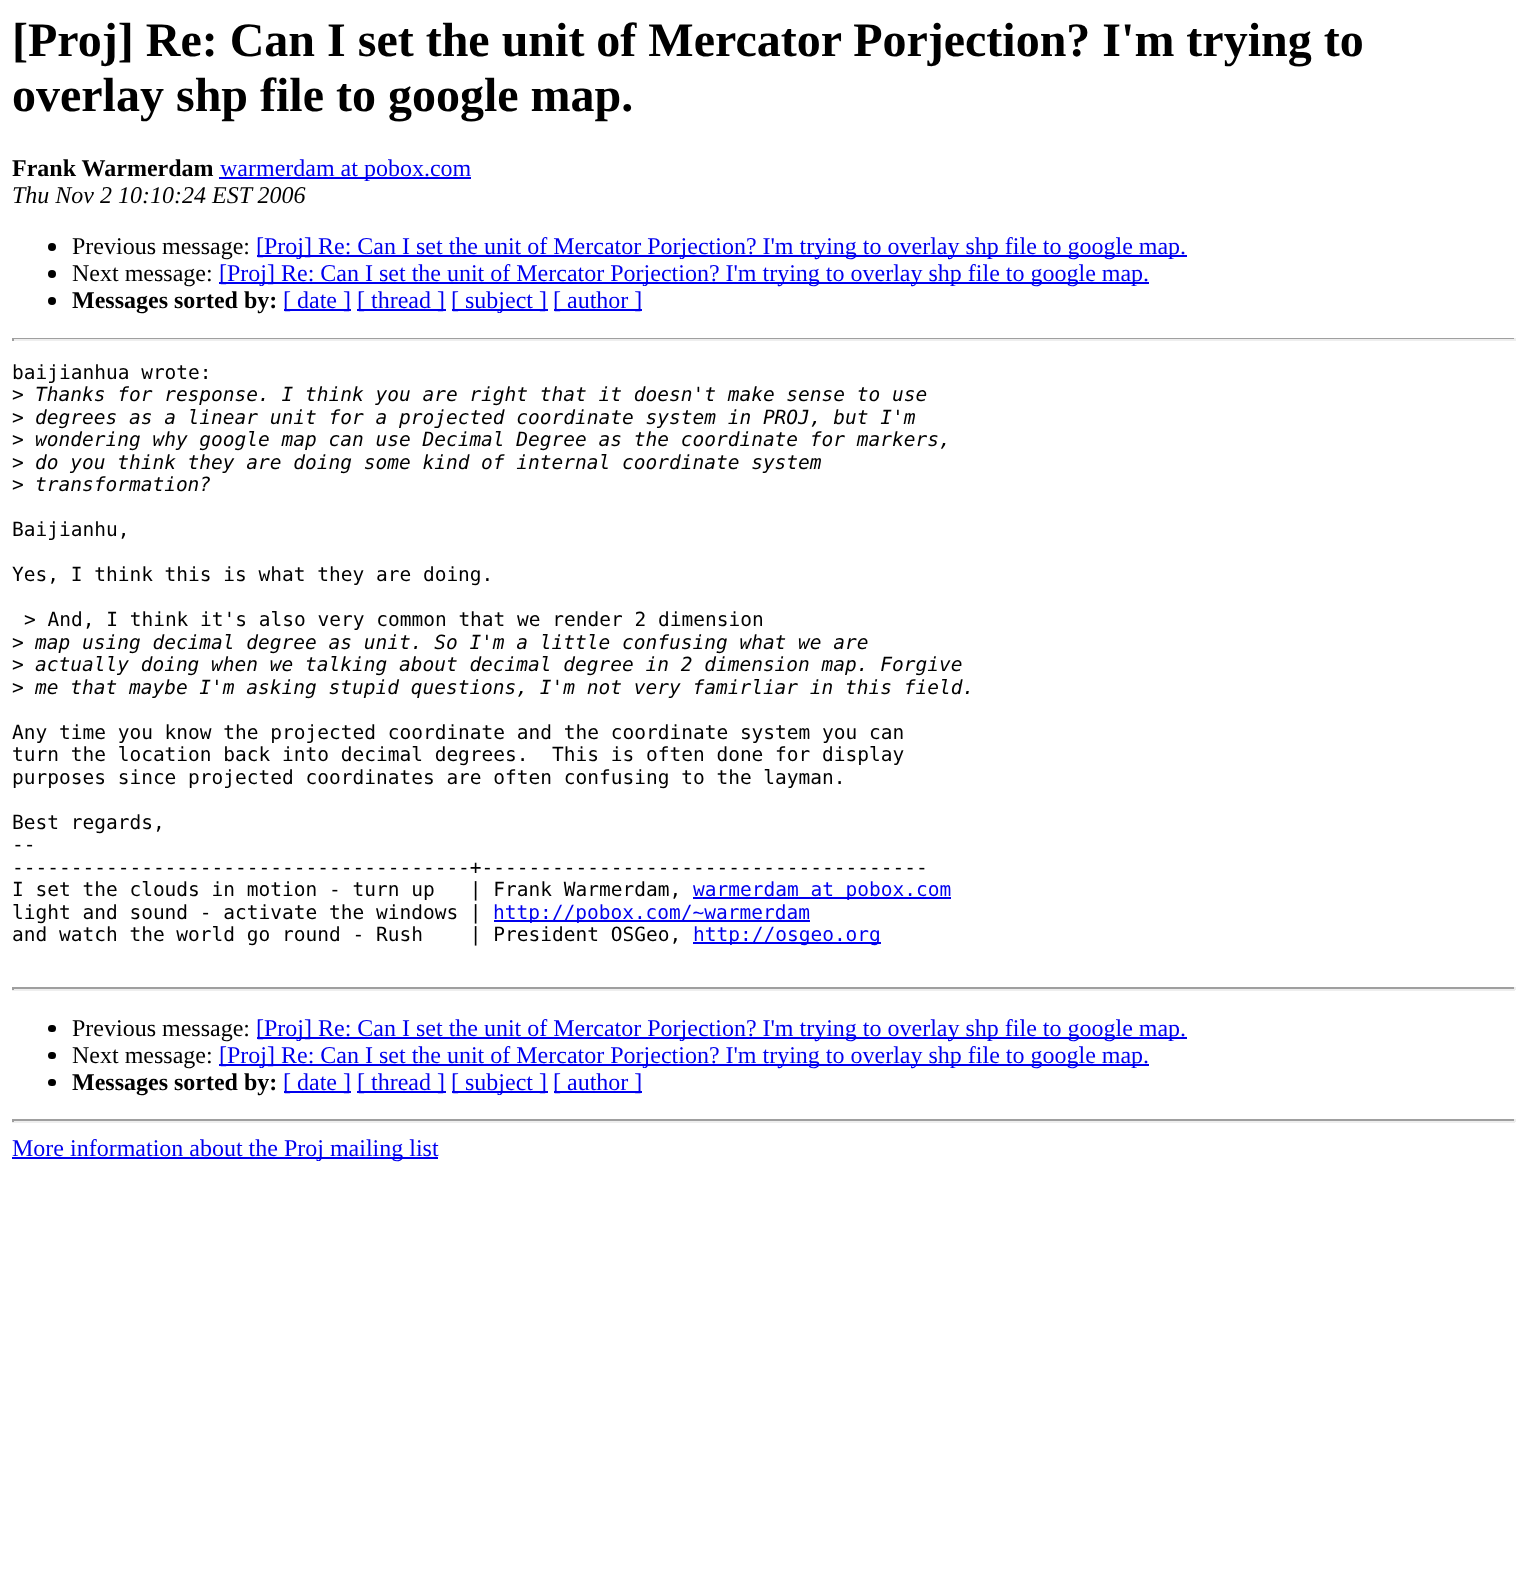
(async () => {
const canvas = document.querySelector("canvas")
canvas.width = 1527
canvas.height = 1590
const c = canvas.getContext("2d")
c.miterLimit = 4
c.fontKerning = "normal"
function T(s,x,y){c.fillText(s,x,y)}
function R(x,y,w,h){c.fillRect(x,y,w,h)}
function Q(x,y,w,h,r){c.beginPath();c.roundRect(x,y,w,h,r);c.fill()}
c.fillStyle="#fff"
R(0,0,1527,1590)
c.font="bold 48px Liberation Serif"
c.fillStyle="#000"
T("[Proj] Re: Can I set the unit of Mercator Porjection? I'm trying to",12,56)
T("overlay shp file to google map.",12,111)
c.font="bold 24px Liberation Serif"
T("Frank Warmerdam",12,176)
c.fillStyle="#00e"
R(219,177,252,2)
c.font="24px Liberation Serif"
T("warmerdam at pobox.com",220,176)
c.font="italic 24px Liberation Serif"
c.fillStyle="#000"
T("Thu Nov 2 10:10:24 EST 2006",12,203)
c.beginPath()
c.arc(52,247,4,0,7)
c.fill()
c.font="24px Liberation Serif"
T("Previous message:",72,254)
c.fillStyle="#00e"
R(257,255,930,2)
T("[Proj] Re: Can I set the unit of Mercator Porjection? I'm trying to overlay shp file to google map.",256,254)
c.fillStyle="#000"
c.beginPath()
c.arc(52,274,4,0,7)
c.fill()
T("Next message:",72,281)
c.fillStyle="#00e"
R(219,282,930,2)
T("[Proj] Re: Can I set the unit of Mercator Porjection? I'm trying to overlay shp file to google map.",219,281)
c.fillStyle="#000"
c.beginPath()
c.arc(52,301,4,0,7)
c.fill()
c.font="bold 24px Liberation Serif"
T("Messages sorted by:",72,308)
c.fillStyle="#00e"
R(284,309,67,2)
c.font="24px Liberation Serif"
T("[ date ]",283,308)
R(357,309,89,2)
T("[ thread ]",357,308)
R(452,309,96,2)
T("[ subject ]",451,308)
R(554,309,88,2)
T("[ author ]",553,308)
c.fillStyle="#9f9f9f"
R(12,338,1503,1)
c.fillStyle="#eee"
R(1514,338,2,3)
R(12,339,1503,2)
c.fillStyle="#9f9f9f"
R(12,338,2,3)
c.font="19.5px DejaVu Sans Mono"
c.fillStyle="#000"
T("baijianhua wrote:",12,379)
T(">",12,401)
c.font="italic 19.5px DejaVu Sans Mono"
T("Thanks for response. I think you are right that it doesn't make sense to use",35,401)
c.font="19.5px DejaVu Sans Mono"
T(">",12,424)
c.font="italic 19.5px DejaVu Sans Mono"
T("degrees as a linear unit for a projected coordinate system in PROJ, but I'm",35,424)
c.font="19.5px DejaVu Sans Mono"
T(">",12,446)
c.font="italic 19.5px DejaVu Sans Mono"
T("wondering why google map can use Decimal Degree as the coordinate for markers,",35,446)
c.font="19.5px DejaVu Sans Mono"
T(">",12,469)
c.font="italic 19.5px DejaVu Sans Mono"
T("do you think they are doing some kind of internal coordinate system",35,469)
c.font="19.5px DejaVu Sans Mono"
T(">",12,491)
c.font="italic 19.5px DejaVu Sans Mono"
T("transformation?",35,491)
c.font="19.5px DejaVu Sans Mono"
T("Baijianhu,",12,536)
T("Yes, I think this is what they are doing.",12,581)
T("> And, I think it's also very common that we render 2 dimension",24,626)
T(">",12,649)
c.font="italic 19.5px DejaVu Sans Mono"
T("map using decimal degree as unit. So I'm a little confusing what we are",35,649)
c.font="19.5px DejaVu Sans Mono"
T(">",12,671)
c.font="italic 19.5px DejaVu Sans Mono"
T("actually doing when we talking about decimal degree in 2 dimension map. Forgive",35,671)
c.font="19.5px DejaVu Sans Mono"
T(">",12,694)
c.font="italic 19.5px DejaVu Sans Mono"
T("me that maybe I'm asking stupid questions, I'm not very famirliar in this field.",35,694)
c.font="19.5px DejaVu Sans Mono"
T("Any time you know the projected coordinate and the coordinate system you can",12,739)
T("turn the location back into decimal degrees.  This is often done for display",12,761)
T("purposes since projected coordinates are often confusing to the layman.",12,784)
T("Best regards,",12,829)
T("--",12,851)
T("---------------------------------------+--------------------------------------",12,874)
T("I set the clouds in motion - turn up   | Frank Warmerdam,",12,896)
c.fillStyle="#00e"
R(693,897,258,2)
T("warmerdam at pobox.com",693,896)
c.fillStyle="#000"
T("light and sound - activate the windows |",12,919)
c.fillStyle="#00e"
R(494,920,316,2)
T("http://pobox.com/~warmerdam",493,919)
c.fillStyle="#000"
T("and watch the world go round - Rush    | President OSGeo,",12,941)
c.fillStyle="#00e"
R(693,942,188,2)
T("http://osgeo.org",693,941)
c.fillStyle="#9f9f9f"
R(12,987,1503,2)
c.fillStyle="#eee"
R(1514,987,2,3)
R(12,989,1503,2)
c.fillStyle="#9f9f9f"
R(12,987,2,3)
c.fillStyle="#000"
Q(48,1025,8,7,3.5)
c.font="24px Liberation Serif"
T("Previous message:",72,1036)
c.fillStyle="#00e"
R(257,1037,930,2)
T("[Proj] Re: Can I set the unit of Mercator Porjection? I'm trying to overlay shp file to google map.",256,1036)
c.fillStyle="#000"
Q(48,1052,8,7,3.5)
T("Next message:",72,1063)
c.fillStyle="#00e"
R(219,1064,930,2)
T("[Proj] Re: Can I set the unit of Mercator Porjection? I'm trying to overlay shp file to google map.",219,1063)
c.fillStyle="#000"
Q(48,1079,8,7,3.5)
c.font="bold 24px Liberation Serif"
T("Messages sorted by:",72,1090)
c.fillStyle="#00e"
R(284,1091,67,2)
c.font="24px Liberation Serif"
T("[ date ]",283,1090)
R(357,1091,89,2)
T("[ thread ]",357,1090)
R(452,1091,96,2)
T("[ subject ]",451,1090)
R(554,1091,88,2)
T("[ author ]",553,1090)
c.fillStyle="#9f9f9f"
R(12,1119,1503,2)
c.fillStyle="#eee"
R(1514,1119,2,3)
R(12,1121,1503,2)
c.fillStyle="#9f9f9f"
R(12,1119,2,3)
c.fillStyle="#00e"
R(12,1157,426,2)
T("More information about the Proj mailing list",12,1156)
})()
